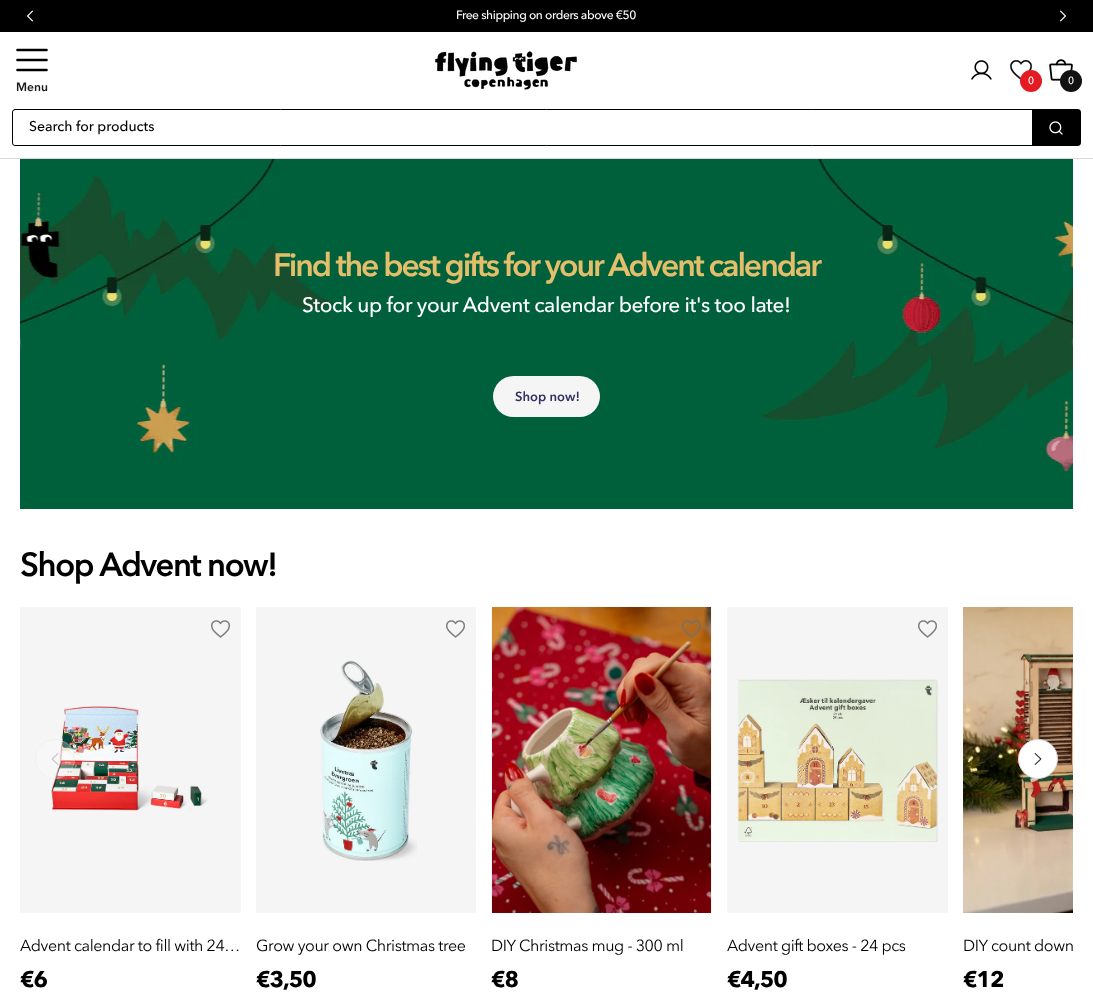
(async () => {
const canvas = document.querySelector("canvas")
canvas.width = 1093
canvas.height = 1000
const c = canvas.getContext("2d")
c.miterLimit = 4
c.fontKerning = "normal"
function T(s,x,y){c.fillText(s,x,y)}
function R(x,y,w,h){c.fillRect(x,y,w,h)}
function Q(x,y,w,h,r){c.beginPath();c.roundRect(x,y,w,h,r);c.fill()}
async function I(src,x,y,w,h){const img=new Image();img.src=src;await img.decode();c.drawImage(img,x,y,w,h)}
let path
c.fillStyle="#fff"
R(0,0,1093,1000)
c.fillStyle="#000"
R(0,0,1093,32)
c.letterSpacing="-0.4px"
c.font="500 12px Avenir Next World"
c.fillStyle="#fff"
T("Free shipping on orders above €50",456,19)
await I("1.png",27,10,6,12)
await I("2.png",1060,10,6,12)
c.fillStyle="#dadada"
R(0,158,1093,1)
await I("3.png",435,51,142,39)
await I("4.png",971,60,21,20)
await I("5.png",1010,60,22,20)
c.fillStyle="#e31b23"
c.beginPath()
c.arc(1031,81,11,0,7)
c.fill()
c.letterSpacing="0px"
c.font="bold 10px 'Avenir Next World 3'"
c.fillStyle="#fff"
T("0",1028,84)
await I("6.png",1049,59,24,22)
c.fillStyle="#121212"
c.beginPath()
c.arc(1071,81,11,0,7)
c.fill()
c.fillStyle="#fff"
T("0",1068,84)
path = new Path2D("M17.5 50h29m-29 10h29m-29 10h29")
c.strokeStyle="#000"
c.lineWidth=2.6
c.lineCap="round"
c.stroke(path)
c.font="600 12px Avenir Next World"
c.fillStyle="#191919"
T("Menu",16,91)
c.beginPath()
c.roundRect(12.5,109.5,1068,36,2.5)
c.lineWidth=1
c.stroke()
c.font="500 14px Avenir Next World"
c.fillStyle="#000"
T("Search for products",29,131)
R(1032,110,48,35)
await I("7.png",1049,121,14,14)
await I("8.png",20,159,1053,350)
c.letterSpacing="-2.1px"
c.font="600 32px Avenir Next World"
c.fillStyle="#e4be6a"
T("Find the best gifts for your Advent calendar",273,276)
c.letterSpacing="-0.4px"
c.font="500 20.8px Avenir Next World"
c.fillStyle="#fff"
T("Stock up for your Advent calendar before it's too late!",302,312)
c.fillStyle="#f5f5f5"
Q(493,376,107,41,20.5)
c.letterSpacing="0px"
c.font="600 13px Avenir Next World"
c.fillStyle="#303061"
T("Shop now!",515,401)
c.letterSpacing="-1px"
c.font="bold 32px Avenir Next World"
c.fillStyle="#000"
T("Shop Advent now!",20,576)
c.fillStyle="#f5f5f5"
R(20,607,221,306)
await I("12.png",50,705,158,106)
c.fillStyle="#ffffff40"
c.beginPath()
c.arc(55,759,20,0,7)
c.fill()
c.beginPath()
c.arc(55,759,19.5,0,7)
c.strokeStyle="#dadada40"
c.stroke()
await I("9.png",51,753,8,12)
await I("17.png",963,607,110,306)
c.fillStyle="#fff"
c.beginPath()
c.arc(1038,759,19.5,0,7)
c.fill()
c.strokeStyle="#dadada"
c.stroke()
await I("10.png",1034,753,8,12)
await I("11.png",211,620,19,18)
c.letterSpacing="-0.4px"
c.font="16px Avenir Next World"
c.fillStyle="#000"
T("Advent calendar to fill with 24…",20,951)
c.letterSpacing="-1px"
c.font="bold 22.5px 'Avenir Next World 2'"
T("€6",20,987)
c.fillStyle="#f5f5f5"
R(256,607,220,306)
await I("11.png",446,620,19,18)
await I("13.png",320,660,97,201)
c.letterSpacing="-0.4px"
c.font="16px Avenir Next World"
c.fillStyle="#000"
T("Grow your own Christmas tree",256,951)
c.letterSpacing="-1px"
c.font="bold 22.5px 'Avenir Next World 2'"
T("€3,50",256,987)
c.fillStyle="#f5f5f5"
R(491,607,221,306)
await I("14.png",492,607,219,306)
await I("15.png",682,620,19,18)
c.letterSpacing="-0.4px"
c.font="16px Avenir Next World"
c.fillStyle="#000"
T("DIY Christmas mug - 300 ml",491,951)
c.letterSpacing="-1px"
c.font="bold 22.5px 'Avenir Next World 2'"
T("€8",491,987)
c.fillStyle="#f5f5f5"
R(727,607,221,306)
await I("11.png",918,620,19,18)
await I("16.png",737,679,202,163)
c.letterSpacing="-0.4px"
c.font="16px Avenir Next World"
c.fillStyle="#000"
T("Advent gift boxes - 24 pcs",727,951)
c.letterSpacing="-1px"
c.font="bold 22.5px 'Avenir Next World 2'"
T("€4,50",727,987)
c.letterSpacing="-0.4px"
c.font="16px Avenir Next World"
T("DIY count down",963,951)
c.letterSpacing="-1px"
c.font="bold 22.5px 'Avenir Next World 2'"
T("€12",963,987)
})()
